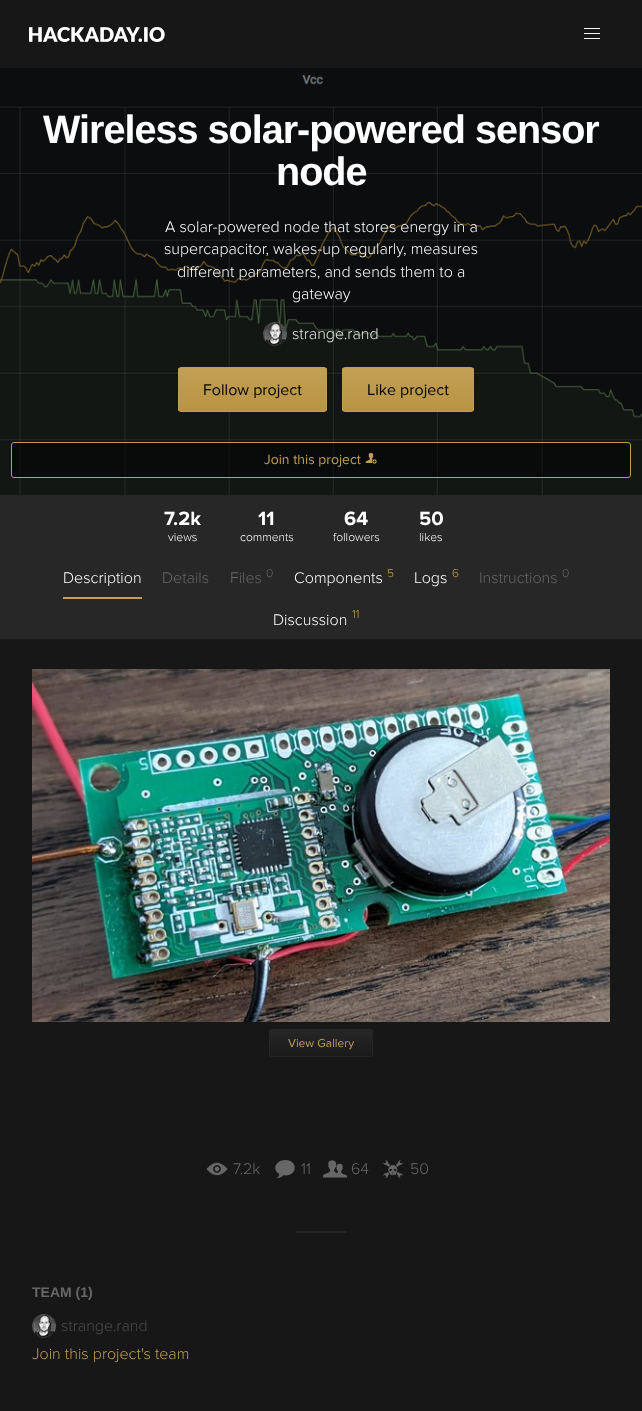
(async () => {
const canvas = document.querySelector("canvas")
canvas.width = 642
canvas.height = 1411
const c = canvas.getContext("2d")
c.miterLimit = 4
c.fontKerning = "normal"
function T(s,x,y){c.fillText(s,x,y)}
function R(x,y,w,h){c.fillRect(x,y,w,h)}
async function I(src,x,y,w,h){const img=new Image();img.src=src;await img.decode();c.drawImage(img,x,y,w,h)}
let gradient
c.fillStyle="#171717"
R(0,0,642,1411)
await I("1.png",29,27,136,15)
c.fillStyle="#f5f5f5"
R(584,28,16,1)
R(584,33,16,1)
R(584,38,16,1)
await I("2.png",0,68,642,427)
c.letterSpacing="-1px"
c.font="bold 39.6px Liberation Sans"
c.fillStyle="#fff"
T("Wireless solar-powered sensor",43,143)
T("node",276,185)
c.letterSpacing="0px"
c.font="300 16px Proxima Nova"
T("A solar-powered node that stores energy in a",165,232)
T("supercapacitor, wakes-up regularly, measures",164,254)
T("different parameters, and sends them to a",177,277)
T("gateway",292,299)
await I("3.png",263,322,24,24)
c.fillStyle="#e6e6e6"
T("strange.rand",292,339)
c.save()
c.beginPath()
c.roundRect(178,367,149,45,3)
c.clip()
gradient = c.createLinearGradient(253,368,253,411)
gradient.addColorStop(0,"#c19f54")
gradient.addColorStop(1,"#b99443")
c.fillStyle = gradient
R(178,368,149,43)
c.restore()
c.beginPath()
c.roundRect(178.5,367.5,148,44,2.5)
c.strokeStyle="#c19f54"
c.stroke()
c.font="16px Proxima Nova"
c.fillStyle="#000"
T("Follow project",203,395)
c.save()
c.beginPath()
c.roundRect(342,367,132,45,3)
c.clip()
gradient = c.createLinearGradient(408,368,408,411)
gradient.addColorStop(0,"#c19f54")
gradient.addColorStop(1,"#b99443")
c.fillStyle = gradient
R(342,368,132,43)
c.restore()
c.beginPath()
c.roundRect(342.5,367.5,131,44,2.5)
c.stroke()
T("Like project",367,395)
c.fillStyle="#00000080"
c.beginPath()
c.roundRect(11.5,442.5,619,35,2.5)
c.fill()
c.stroke()
c.font="14px Proxima Nova"
c.fillStyle="#c19f54"
T("Join this project",264,464)
await I("4.png",365,453,12,11)
c.fillStyle="#272727"
R(0,495,642,144)
c.font="bold 20px Proxima Nova"
c.fillStyle="#fff"
T("7.2k",164,525)
c.font="300 12px Proxima Nova"
T("views",168,541)
c.font="bold 20px Proxima Nova"
T("11",258,525)
c.font="300 12px Proxima Nova"
T("comments",240,541)
c.font="bold 20px Proxima Nova"
T("64",344,525)
c.font="300 12px Proxima Nova"
T("followers",333,541)
c.font="bold 20px Proxima Nova"
T("50",419,525)
c.font="300 12px Proxima Nova"
T("likes",419,541)
c.fillStyle="#c19f54"
R(63,597,79,2)
c.font="300 16px Proxima Nova"
c.fillStyle="#fff"
T("Description",63,583)
c.fillStyle="#676767"
T("Details",162,583)
T("Files",230,583)
c.font="300 12px Proxima Nova"
T("0",266,577)
c.font="300 16px Proxima Nova"
c.fillStyle="#fff"
T("Components",294,583)
c.font="300 12px Proxima Nova"
c.fillStyle="#c19f54"
T("5",387,577)
c.font="300 16px Proxima Nova"
c.fillStyle="#fff"
T("Logs",414,583)
c.font="300 12px Proxima Nova"
c.fillStyle="#c19f54"
T("6",452,577)
c.font="300 16px Proxima Nova"
c.fillStyle="#676767"
T("Instructions",479,583)
c.font="300 12px Proxima Nova"
T("0",562,577)
c.font="300 16px Proxima Nova"
c.fillStyle="#fff"
T("Discussion",273,625)
c.font="300 12px Proxima Nova"
c.fillStyle="#c19f54"
T("11",352,618)
await I("5.png",32,669,578,353)
c.save()
c.beginPath()
c.roundRect(269,1029,104,28,3)
c.clip()
gradient = c.createLinearGradient(321,1030,321,1056)
gradient.addColorStop(0,"#272727")
gradient.addColorStop(1,"#1a1a1a")
c.fillStyle = gradient
R(269,1030,104,26)
c.restore()
c.beginPath()
c.roundRect(269.5,1029.5,103,27,2.5)
c.strokeStyle="#272727"
c.stroke()
c.font="12px Proxima Nova"
T("View Gallery",288,1047)
await I("6.png",206,1162,22,14)
c.font="300 16px Proxima Nova"
c.fillStyle="#676767"
T("7.2k",233,1174)
await I("7.png",275,1160,20,18)
T("11",301,1174)
await I("8.png",323,1160,24,18)
T("64",351,1174)
await I("9.png",383,1160,20,18)
T("50",410,1174)
c.fillStyle="#272727"
R(296,1231,50,2)
c.font="bold 14px Liberation Sans"
c.fillStyle="#676767"
T("TEAM (1)",32,1297)
await I("10.png",32,1314,24,24)
c.font="300 16px Proxima Nova"
c.fillStyle="#4d4d4d"
T("strange.rand",61,1331)
c.fillStyle="#c19f54"
T("Join this project's team",32,1359)
})()
